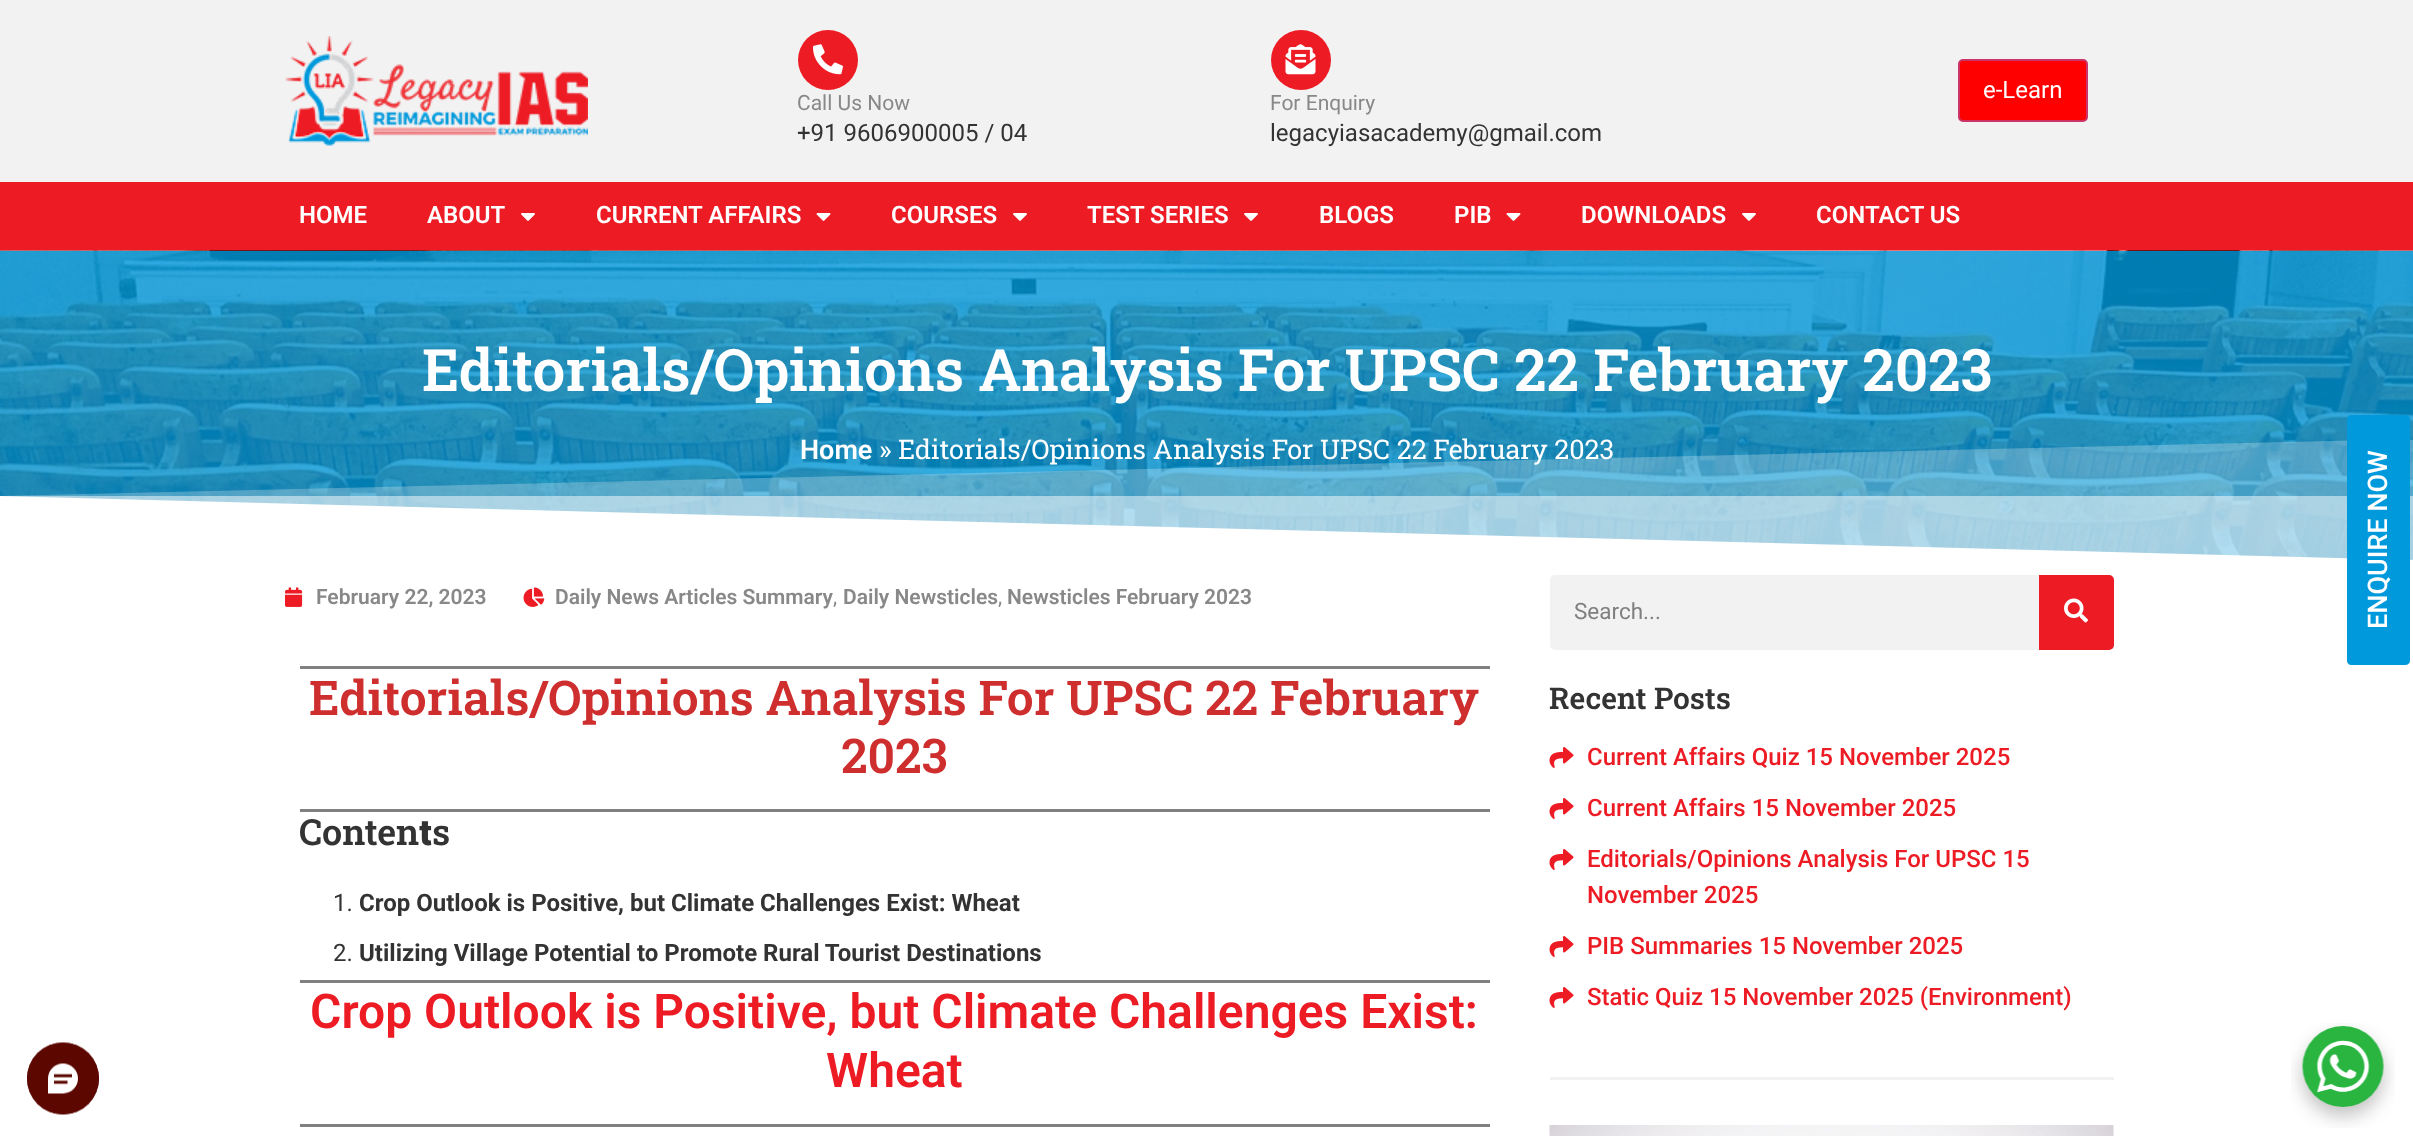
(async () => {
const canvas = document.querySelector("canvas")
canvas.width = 2413
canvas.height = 1136
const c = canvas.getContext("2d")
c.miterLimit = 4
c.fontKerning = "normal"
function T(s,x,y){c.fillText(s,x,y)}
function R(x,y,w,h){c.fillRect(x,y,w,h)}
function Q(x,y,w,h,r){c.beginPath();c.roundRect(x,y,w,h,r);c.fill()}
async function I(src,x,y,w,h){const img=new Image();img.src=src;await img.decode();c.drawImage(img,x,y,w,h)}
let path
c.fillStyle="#fff"
R(0,0,2413,1136)
c.fillStyle="#33ade3"
R(2410,559,3,1)
c.fillStyle="#f2f2f2"
R(0,0,2413,182)
await I("1.png",285,36,303,110)
c.fillStyle="#f00"
c.beginPath()
c.roundRect(1959,60,128,61,4)
c.fill()
c.strokeStyle="#c36"
c.lineWidth=2
c.stroke()
c.font="24px Roboto"
c.fillStyle="#fff"
T("e-Learn",1983,98)
c.fillStyle="#ed1b24"
c.beginPath()
c.arc(828,60,30,0,7)
c.fill()
await I("2.png",813,44,30,31)
c.font="21px Roboto"
c.fillStyle="#888"
T("Call Us Now",797,110)
c.font="24px Roboto"
c.fillStyle="#333"
T("+91 9606900005 / 04",797,141)
c.fillStyle="#ed1b24"
c.beginPath()
c.arc(1301,60,30,0,7)
c.fill()
await I("3.png",1285,44,31,31)
c.font="21px Roboto"
c.fillStyle="#888"
T("For Enquiry",1270,110)
c.font="24px Roboto"
c.fillStyle="#333"
T("legacyiasacademy@gmail.com",1270,141)
c.fillStyle="#ed1b24"
R(0,182,2413,69)
c.font="600 24px Roboto"
c.fillStyle="#fff"
T("HOME",299,223)
T("ABOUT",427,223)
await I("4.png",521,213,14,8)
T("CURRENT AFFAIRS",596,223)
await I("5.png",816,213,15,8)
T("COURSES",891,223)
await I("4.png",1013,213,14,8)
T("TEST SERIES",1087,223)
await I("4.png",1244,213,14,8)
T("BLOGS",1319,223)
T("PIB",1454,223)
await I("5.png",1506,213,15,8)
T("DOWNLOADS",1581,223)
await I("4.png",1742,213,14,8)
T("CONTACT US",1816,223)
await I("6.png",0,250,2413,310)
c.font="600 58.5px Roboto Slab"
T("Editorials/Opinions Analysis For UPSC 22 February 2023",422,391)
path = new Path2D("M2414 560h-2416v-64z")
c.fill(path)
c.fillStyle="#ffffff80"
R(0,496,2413,64)
c.save()
c.beginPath()
c.rect(0,440,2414,121)
c.clip()
c.fillStyle="#ffffff40"
path = new Path2D("M-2 560h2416v-121l-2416 57z")
c.fill(path)
c.restore()
c.font="600 27px Roboto"
c.fillStyle="#fff"
T("Home",800,459)
c.font="27px Roboto Slab"
T("» Editorials/Opinions Analysis For UPSC 22 February 2023",879,459)
await I("7.png",285,587,18,20)
c.font="600 21px Roboto"
c.fillStyle="#888"
T("February 22, 2023",316,604)
await I("8.png",523,587,22,20)
T("Daily News Articles Summary",555,604)
c.font="21px Roboto"
T(",",833,604)
c.font="600 21px Roboto"
T("Daily Newsticles",843,604)
c.font="21px Roboto"
T(",",998,604)
c.font="600 21px Roboto"
T("Newsticles February 2023",1007,604)
c.fillStyle="#808080"
R(300,666,1190,3)
c.font="600 48px Roboto Slab"
c.fillStyle="#cf2e2e"
T("Editorials/Opinions Analysis For UPSC 22 February",309,715)
T("2023",841,773)
c.fillStyle="#808080"
R(300,809,1190,3)
c.font="600 36px Roboto Slab"
c.fillStyle="#333"
T("Conten",299,845)
c.font="900 36px Roboto Slab"
T("t",419,845)
c.font="600 36px Roboto Slab"
T("s",432,845)
c.font="24px Roboto"
T("1.",333,911)
c.font="bold 24px Roboto"
T("Crop Outlook is Positive, but Climate Challenges Exist: Wheat",359,911)
c.font="24px Roboto"
T("2.",333,961)
c.font="bold 24px Roboto"
T("Utilizing Village Potential to Promote Rural Tourist Destinations",359,961)
c.fillStyle="#808080"
R(300,980,1190,3)
c.font="600 48px Roboto"
c.fillStyle="#ed1b24"
T("Crop Outlook is Positive, but Climate Challenges Exist:",310,1028)
T("Wheat",826,1087)
c.fillStyle="#808080"
R(300,1124,1190,3)
c.fillStyle="#f2f2f2"
Q(1550,575,564,75,5)
c.font="22.5px Roboto"
c.fillStyle="#7f7f7f"
T("Search...",1574,619)
c.fillStyle="#ed1b24"
c.beginPath()
c.roundRect(2039,575,75,75,[0,5,5,0])
c.fill()
await I("9.png",2064,598,24,25)
c.font="600 30px Roboto Slab"
c.fillStyle="#333"
T("Recent Posts",1549,709)
await I("10.png",1549,747,25,21)
c.font="500 24px Roboto"
c.fillStyle="#ed1b24"
T("Current Affairs Quiz 15 November 2025",1587,765)
await I("10.png",1549,798,25,21)
T("Current Affairs 15 November 2025",1587,816)
await I("10.png",1549,849,25,21)
T("Editorials/Opinions Analysis For UPSC 15",1587,867)
T("November 2025",1587,903)
await I("10.png",1549,936,25,21)
T("PIB Summaries 15 November 2025",1587,954)
await I("10.png",1549,987,25,21)
T("Static Quiz 15 November 2025 (Environment)",1587,1005)
c.fillStyle="#f2f2f2"
R(1550,1077,564,3)
await I("11.png",1549,1125,565,11)
c.fillStyle="#0099dc"
path = new Path2D("M2347 661v-242c0-2 2-4 4-4h54c3 0 5 2 5 4v242c0 2-2 4-5 4h-54c-2 0-4-2-4-4z")
c.fill(path)
c.font="500 27px Roboto"
c.fillStyle="#fff"
c.save()
c.translate(2387,629)
c.rotate(-90 * Math.PI / 180)
c.fillText("ENQUIRE NOW",0,0)
c.restore()
await I("12.png",27,1042,72,73)
await I("13.png",2291,1023,104,105)
})()
